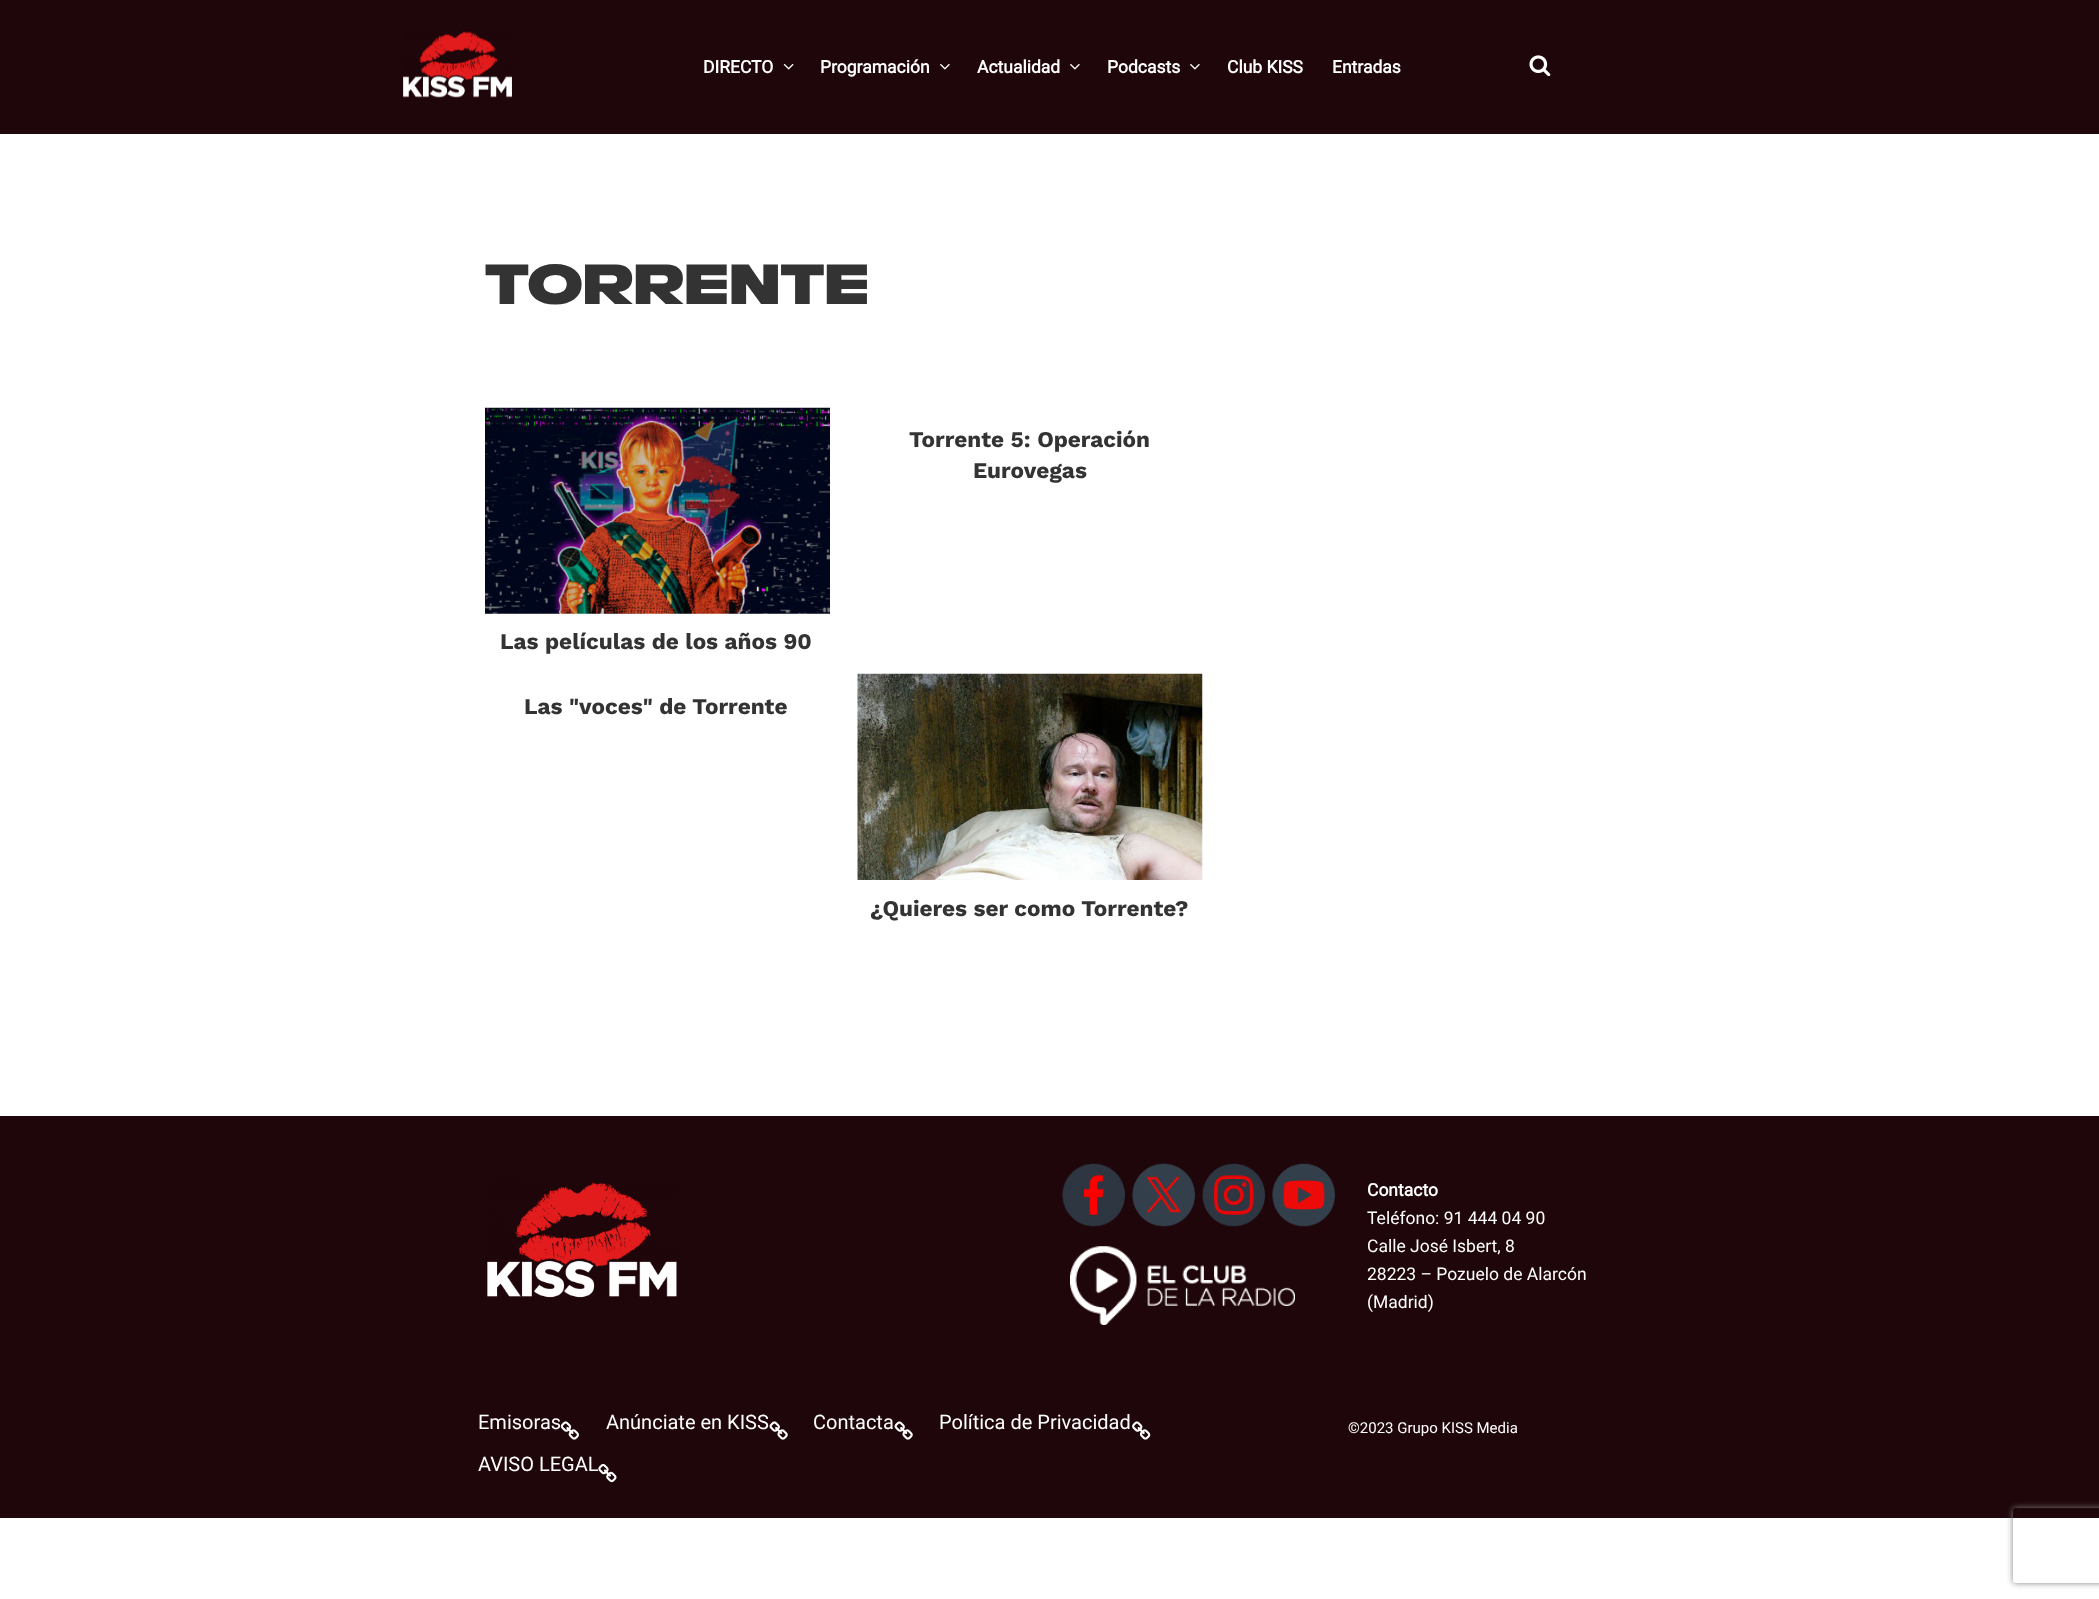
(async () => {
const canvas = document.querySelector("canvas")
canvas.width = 2099
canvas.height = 1599
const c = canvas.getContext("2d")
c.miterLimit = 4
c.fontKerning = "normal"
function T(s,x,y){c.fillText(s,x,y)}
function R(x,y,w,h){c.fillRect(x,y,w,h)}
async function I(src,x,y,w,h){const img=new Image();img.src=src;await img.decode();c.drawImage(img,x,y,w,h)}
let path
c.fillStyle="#fff"
R(0,0,2099,1599)
c.fillStyle="#1f060a"
R(0,0,2099,134)
await I("1.png",403,31,109,67)
c.font="bold 17.5px Roboto"
c.fillStyle="#fff"
T("DIRECTO",703,73)
await I("2.png",783,63,11,7)
T("Programación",820,73)
await I("3.png",940,63,10,7)
T("Actualidad",977,73)
await I("3.png",1070,63,10,7)
T("Podcasts",1107,73)
await I("3.png",1190,63,10,7)
T("Club KISS",1227,73)
T("Entradas",1332,73)
await I("4.png",1529,55,22,21)
c.font="56.25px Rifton"
c.fillStyle="#333"
T("Torrente",485,304)
c.font="bold 22.5px Work Sans"
T("Torrente 5: Operación",909,447)
T("Eurovegas",973,478)
await I("5.png",485,407,345,207)
T("Las películas de los años 90",500,649)
T("Las \"voces\" de Torrente",524,714)
await I("6.png",857,673,346,207)
T("¿Quieres ser como Torrente?",870,916)
c.fillStyle="#1f060a"
R(0,1116,2099,402)
await I("7.png",487,1182,190,116)
await I("8.png",1062,1163,63,64)
await I("9.png",1132,1163,63,64)
await I("10.png",1202,1163,63,64)
await I("11.png",1272,1163,63,64)
await I("12.png",1070,1246,225,79)
c.font="bold 17.5px Roboto"
c.fillStyle="#fff"
T("Contacto",1367,1196)
c.font="17.5px Roboto"
T("Teléfono: 91 444 04 90",1367,1224)
T("Calle José Isbert, 8",1367,1252)
T("28223 – Pozuelo de Alarcón",1367,1280)
T("(Madrid)",1367,1308)
c.font="20px Roboto"
T("Emisoras",478,1429)
await I("13.png",560,1421,19,19)
T("Anúnciate en KISS",606,1429)
await I("14.png",769,1421,19,19)
T("Contacta",813,1429)
await I("14.png",894,1421,19,19)
T("Política de Privacidad",939,1429)
await I("15.png",1132,1421,19,19)
T("AVISO LEGAL",478,1471)
await I("16.png",598,1464,19,19)
c.font="15px Roboto"
T("©2023 Grupo KISS Media",1348,1433)
c.save()
path = new Path2D("M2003 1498h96v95h-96zm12.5 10h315c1.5 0 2.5 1 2.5 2.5v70c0 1.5-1 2.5-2.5 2.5h-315c-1.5 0-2.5-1-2.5-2.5v-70c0-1.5 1-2.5 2.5-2.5z")
c.clip(path,"evenodd")
c.fillStyle="#808080"
c.filter="blur(3px)"
c.beginPath()
c.roundRect(2013,1508,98,75,2.5)
c.fill()
c.filter="none"
c.restore()
})()
